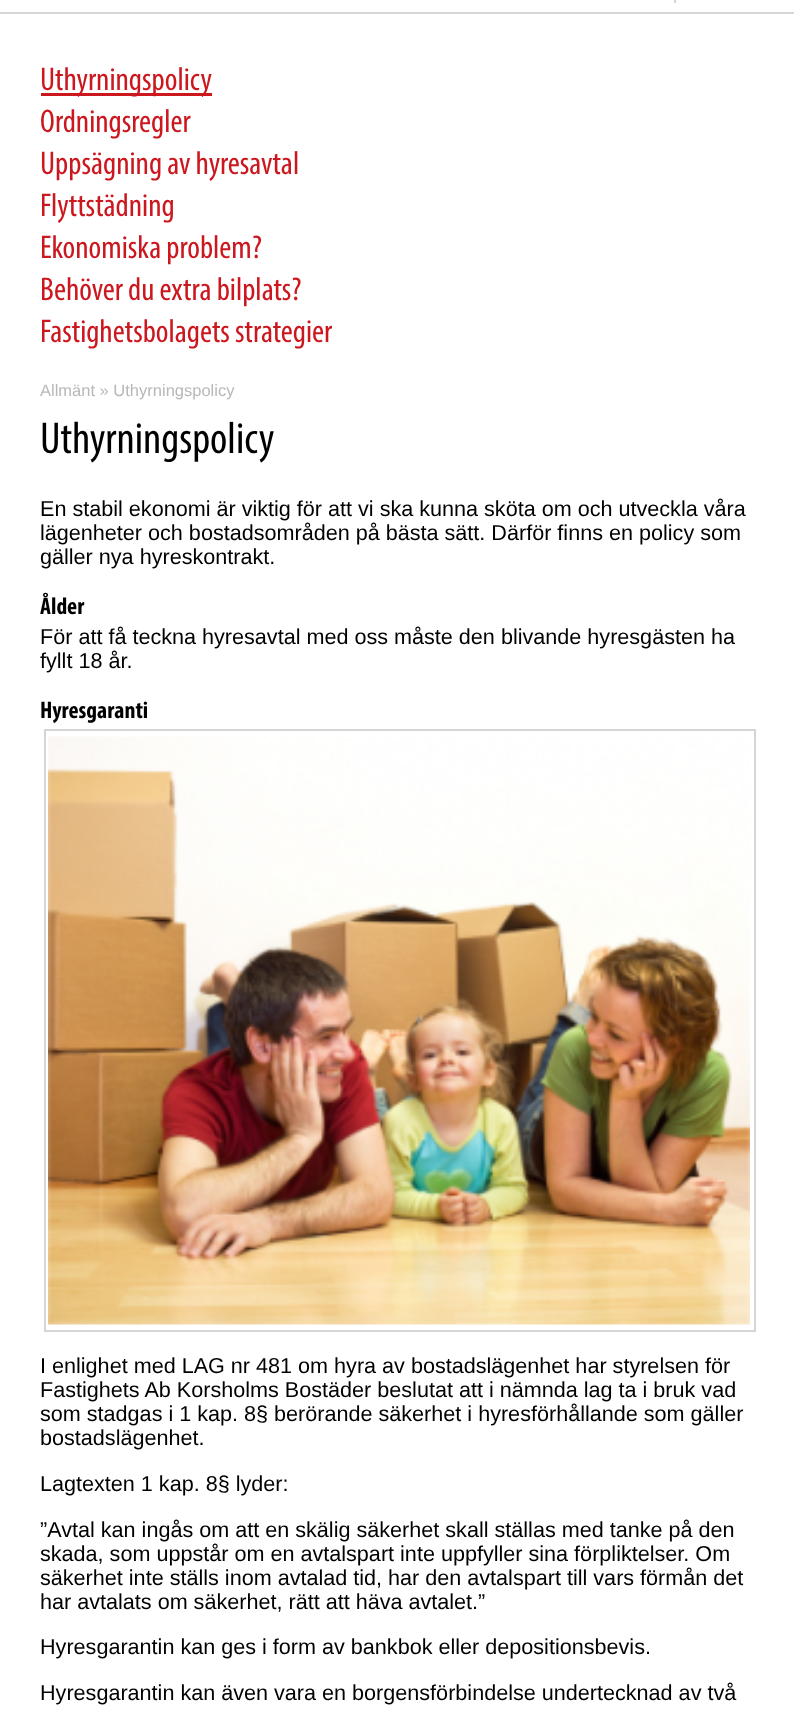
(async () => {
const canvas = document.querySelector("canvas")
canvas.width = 794
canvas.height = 1717
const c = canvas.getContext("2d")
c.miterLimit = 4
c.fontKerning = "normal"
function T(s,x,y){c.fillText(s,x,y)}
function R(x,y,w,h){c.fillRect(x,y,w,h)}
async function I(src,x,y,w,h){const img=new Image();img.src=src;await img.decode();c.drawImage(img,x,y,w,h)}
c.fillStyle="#fff"
R(0,0,794,1717)
c.fillStyle="#d5d5d5"
R(0,12,794,2)
R(674,0,2,3)
c.fillStyle="#cc171e"
R(41,93,171,3)
c.font="33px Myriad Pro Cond"
T("Uthyrningspolicy",40,90)
c.save()
c.beginPath()
c.rect(41,99,715,42)
c.clip()
T("Ordningsregler",40,132)
c.restore()
T("Uppsägning av hyresavtal",40,174)
T("Flyttstädning",40,216)
T("Ekonomiska problem?",40,258)
T("Behöver du extra bilplats?",40,300)
T("Fastighetsbolagets strategier",40,342)
c.font="16.5px Liberation Sans"
c.fillStyle="#b8b8b8"
T("Allmänt » Uthyrningspolicy",40,396)
c.font="45px Myriad Pro Cond"
c.fillStyle="#000"
T("Uthyrningspolicy",40,453)
c.font="21.6px Liberation Sans"
T("En stabil ekonomi är viktig för att vi ska kunna sköta om och utveckla våra",40,516)
T("lägenheter och bostadsområden på bästa sätt. Därför finns en policy som",40,540)
T("gäller nya hyreskontrakt.",40,564)
c.font="bold 24px Myriad Pro Cond"
T("Ålder",40,614)
c.font="21.6px Liberation Sans"
T("För att få teckna hyresavtal med oss måste den blivande hyresgästen ha",40,644)
T("fyllt 18 år.",40,668)
c.font="bold 24px Myriad Pro Cond"
T("Hyresgaranti",40,718)
c.strokeStyle="#d5d5d5"
c.lineWidth=2
c.strokeRect(45,730,710,601)
await I("1.png",48,736,702,589)
c.font="21.6px Liberation Sans"
T("I enlighet med LAG nr 481 om hyra av bostadslägenhet har styrelsen för",40,1373)
T("Fastighets Ab Korsholms Bostäder beslutat att i nämnda lag ta i bruk vad",40,1397)
T("som stadgas i 1 kap. 8§ berörande säkerhet i hyresförhållande som gäller",40,1421)
T("bostadslägenhet.",40,1445)
T("Lagtexten 1 kap. 8§ lyder:",40,1491)
T("”Avtal kan ingås om att en skälig säkerhet skall ställas med tanke på den",40,1537)
T("skada, som uppstår om en avtalspart inte uppfyller sina förpliktelser. Om",40,1561)
T("säkerhet inte ställs inom avtalad tid, har den avtalspart till vars förmån det",40,1585)
T("har avtalats om säkerhet, rätt att häva avtalet.”",40,1609)
T("Hyresgarantin kan ges i form av bankbok eller depositionsbevis.",40,1654)
T("Hyresgarantin kan även vara en borgensförbindelse undertecknad av två",40,1700)
})()
